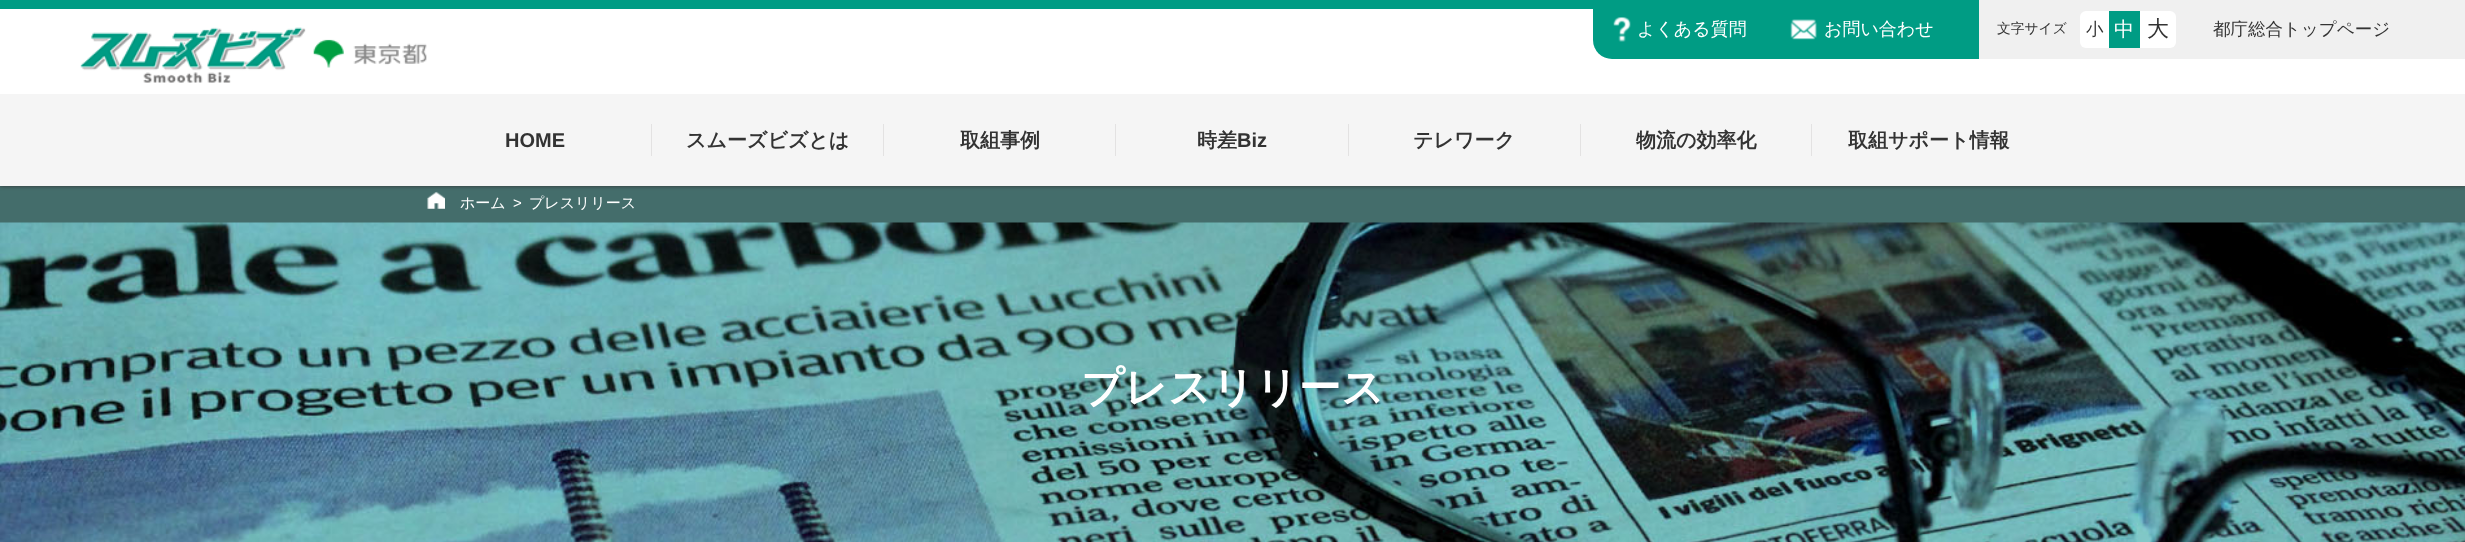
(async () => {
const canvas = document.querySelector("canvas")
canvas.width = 2465
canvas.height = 542
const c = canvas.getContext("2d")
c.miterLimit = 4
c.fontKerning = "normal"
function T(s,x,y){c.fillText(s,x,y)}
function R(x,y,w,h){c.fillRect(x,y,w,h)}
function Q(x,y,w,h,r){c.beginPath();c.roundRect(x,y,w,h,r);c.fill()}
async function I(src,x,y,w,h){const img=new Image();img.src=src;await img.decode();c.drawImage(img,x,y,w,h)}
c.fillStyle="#446d6b"
R(0,0,2465,542)
await I("5.png",427,191,18,18)
c.fillStyle="#333"
c.filter="blur(2px)"
c.beginPath()
c.rect(0,0,2465,186)
c.fill()
c.filter="none"
c.fillStyle="#fff"
R(0,9,2465,85)
c.fillStyle="#009c84"
R(0,0,1979,9)
await I("1.png",80,27,226,56)
await I("2.png",313,39,114,29)
c.beginPath()
c.roundRect(1593,9,386,50,[0,0,0,19])
c.fill()
await I("3.png",1613,17,18,25)
c.font="500 18px WenQuanYi Zen Hei"
c.fillStyle="#fff"
T("よくある質問",1637,35)
await I("4.png",1790,19,27,21)
T("お問い合わせ",1824,35)
c.fillStyle="#f0f0f0"
R(1979,0,486,59)
c.font="500 13.75px WenQuanYi Zen Hei"
c.fillStyle="#333"
T("文字サイズ",1997,33)
c.fillStyle="#fff"
Q(2080,11,96,37,6)
c.font="500 17.5px WenQuanYi Zen Hei"
c.fillStyle="#333"
T("小",2086,35)
c.fillStyle="#009c84"
R(2109,11,31,37)
c.font="500 20px WenQuanYi Zen Hei"
c.fillStyle="#fff"
T("中",2114,36)
c.font="500 22px WenQuanYi Zen Hei"
c.fillStyle="#333"
T("大",2147,36)
c.font="500 17.5px WenQuanYi Zen Hei"
T("都庁総合トップページ",2213,35)
c.fillStyle="#f5f5f5"
R(0,94,2465,92)
c.fillStyle="#e3e2e2"
R(651,124,1,32)
c.font="bold 20px Liberation Sans"
c.fillStyle="#333"
T("HOME",505,147)
c.fillStyle="#e3e2e2"
R(883,124,1,32)
c.font="bold 20px WenQuanYi Zen Hei"
c.fillStyle="#333"
T("スムーズビズとは",686,147)
c.fillStyle="#e3e2e2"
R(1115,124,1,32)
c.fillStyle="#333"
T("取組事例",960,147)
c.fillStyle="#e3e2e2"
R(1348,124,1,32)
c.fillStyle="#333"
T("時差",1197,147)
c.font="bold 20px Liberation Sans"
T("Biz",1237,147)
c.fillStyle="#e3e2e2"
R(1580,124,1,32)
c.font="bold 20px WenQuanYi Zen Hei"
c.fillStyle="#333"
T("テレワーク",1413,147)
c.fillStyle="#e3e2e2"
R(1811,124,1,32)
c.fillStyle="#333"
T("物流の効率化",1636,147)
T("取組サポート情報",1848,147)
c.font="500 15px WenQuanYi Zen Hei"
c.fillStyle="#fff"
T("ホーム",460,208)
c.font="15px Liberation Sans"
T(">",513,208)
c.font="500 15px WenQuanYi Zen Hei"
T("プレスリリース",529,208)
await I("6.png",0,222,2465,320)
c.font="bold 42.5px WenQuanYi Zen Hei"
T("プレスリリース",1081,402)
})()
